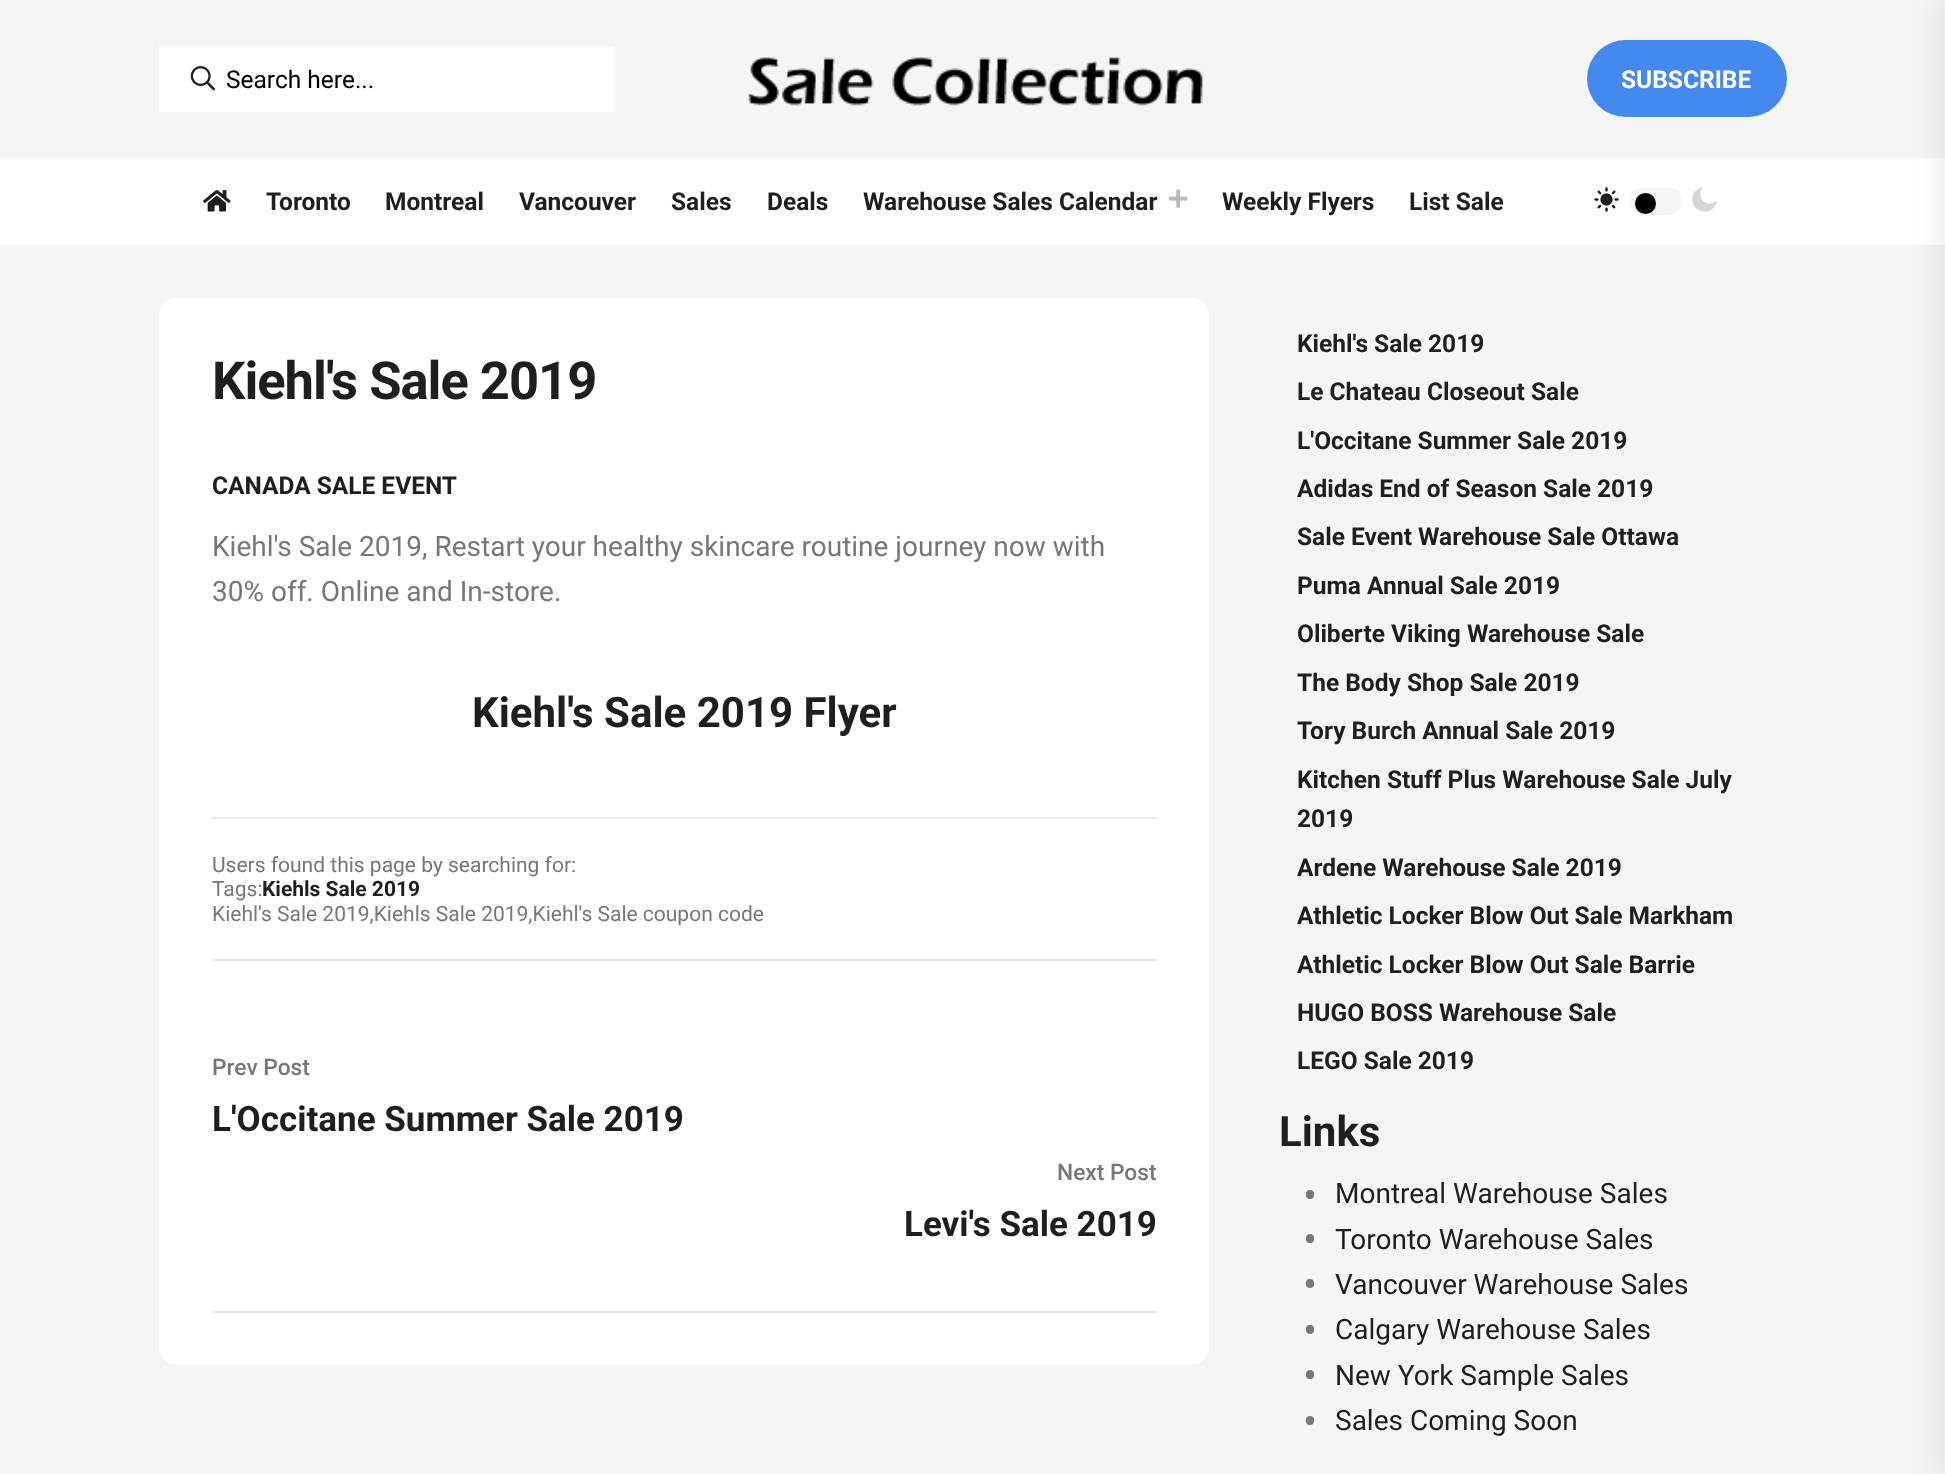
(async () => {
const canvas = document.querySelector("canvas")
canvas.width = 1945
canvas.height = 1474
const c = canvas.getContext("2d")
c.miterLimit = 4
c.fontKerning = "normal"
function T(s,x,y){c.fillText(s,x,y)}
function R(x,y,w,h){c.fillRect(x,y,w,h)}
function Q(x,y,w,h,r){c.beginPath();c.roundRect(x,y,w,h,r);c.fill()}
async function I(src,x,y,w,h){const img=new Image();img.src=src;await img.decode();c.drawImage(img,x,y,w,h)}
c.fillStyle="#f5f5f5"
R(0,0,1945,1474)
c.fillStyle="#fff"
R(159,46,455,66)
await I("1.png",190,66,26,25)
c.font="24.5px Roboto"
c.fillStyle="#000"
T("Search here...",226,88)
await I("2.png",748,57,455,49)
c.fillStyle="#4689ee"
Q(1587,40,200,77,38.5)
c.font="bold 24.5px Roboto"
c.fillStyle="#fff"
T("SUBSCRIBE",1621,88)
R(0,158,1945,87)
await I("3.png",203,190,28,22)
c.fillStyle="#1f1f1f"
T("Toronto",266,210)
T("Montreal",385,210)
T("Vancouver",519,210)
T("Sales",671,210)
T("Deals",767,210)
T("Warehouse Sales Calendar",863,210)
await I("4.png",1169,189,19,19)
T("Weekly Flyers",1222,210)
T("List Sale",1409,210)
await I("5.png",1594,187,25,25)
c.fillStyle="#f5f5f5"
Q(1629,187,53,28,14)
c.fillStyle="#000"
c.beginPath()
c.arc(1645.5,203.5,10.5,0,7)
c.fill()
await I("6.png",1692,187,25,25)
c.fillStyle="#0000000f"
c.filter="blur(12px)"
c.beginPath()
c.rect(1936,0,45,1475)
c.fill()
c.filter="none"
c.fillStyle="#fff"
Q(159,298,1050,1067,18)
c.letterSpacing="-1px"
c.font="bold 52.5px Roboto"
c.fillStyle="#1f1f1f"
T("Kiehl's Sale 2019",212,399)
c.letterSpacing="0px"
c.font="bold 24.5px Roboto"
T("CANADA SALE EVENT",212,494)
c.font="28px Roboto"
c.fillStyle="#777"
T("Kiehl's Sale 2019, Restart your healthy skincare routine journey now with",212,556)
T("30% off. Online and In-store.",212,601)
c.font="bold 42px Roboto"
c.fillStyle="#1f1f1f"
T("Kiehl's Sale 2019 Flyer",472,727)
c.fillStyle="#e8e8e8"
R(212,817,945,2)
R(212,959,945,2)
c.font="21px Roboto"
c.fillStyle="#777"
T("Users found this page by searching for:",212,872)
T("Tags:",212,896)
c.font="bold 21px Roboto"
c.fillStyle="#1f1f1f"
T("Kiehls Sale 2019",262,896)
c.font="21px Roboto"
c.fillStyle="#777"
T("Kiehl's Sale 2019,Kiehls Sale 2019,Kiehl's Sale coupon code",212,921)
c.fillStyle="#e8e8e8"
R(212,1311,945,2)
c.font="500 22.75px Roboto"
c.fillStyle="#777"
T("Prev Post",212,1075)
c.font="bold 35px Roboto"
c.fillStyle="#1f1f1f"
T("L'Occitane Summer Sale 2019",212,1131)
c.font="500 22.75px Roboto"
c.fillStyle="#777"
T("Next Post",1057,1180)
c.font="bold 35px Roboto"
c.fillStyle="#1f1f1f"
T("Levi's Sale 2019",904,1236)
c.font="bold 24.5px Roboto"
T("Kiehl's Sale 2019",1297,352)
T("Le Chateau Closeout Sale",1297,400)
T("L'Occitane Summer Sale 2019",1297,449)
T("Adidas End of Season Sale 2019",1297,497)
T("Sale Event Warehouse Sale Ottawa",1297,545)
T("Puma Annual Sale 2019",1297,594)
T("Oliberte Viking Warehouse Sale",1297,642)
T("The Body Shop Sale 2019",1297,691)
T("Tory Burch Annual Sale 2019",1297,739)
T("Kitchen Stuff Plus Warehouse Sale July",1297,788)
T("2019",1297,827)
T("Ardene Warehouse Sale 2019",1297,876)
T("Athletic Locker Blow Out Sale Markham",1297,924)
T("Athletic Locker Blow Out Sale Barrie",1297,973)
T("HUGO BOSS Warehouse Sale",1297,1021)
T("LEGO Sale 2019",1297,1069)
c.font="bold 42px Roboto"
T("Links",1279,1146)
c.fillStyle="#777"
Q(1306,1190,8,9,4)
c.font="28px Roboto"
c.fillStyle="#1f1f1f"
T("Montreal Warehouse Sales",1335,1203)
c.fillStyle="#777"
Q(1306,1234,8,9,4)
c.fillStyle="#1f1f1f"
T("Toronto Warehouse Sales",1335,1249)
c.fillStyle="#777"
Q(1306,1279,8,9,4)
c.fillStyle="#1f1f1f"
T("Vancouver Warehouse Sales",1335,1294)
c.fillStyle="#777"
Q(1306,1325,8,9,4)
c.fillStyle="#1f1f1f"
T("Calgary Warehouse Sales",1335,1339)
c.fillStyle="#777"
Q(1306,1370,8,9,4)
c.fillStyle="#1f1f1f"
T("New York Sample Sales",1335,1385)
c.fillStyle="#777"
Q(1306,1416,8,9,4)
c.fillStyle="#1f1f1f"
T("Sales Coming Soon",1335,1430)
})()
